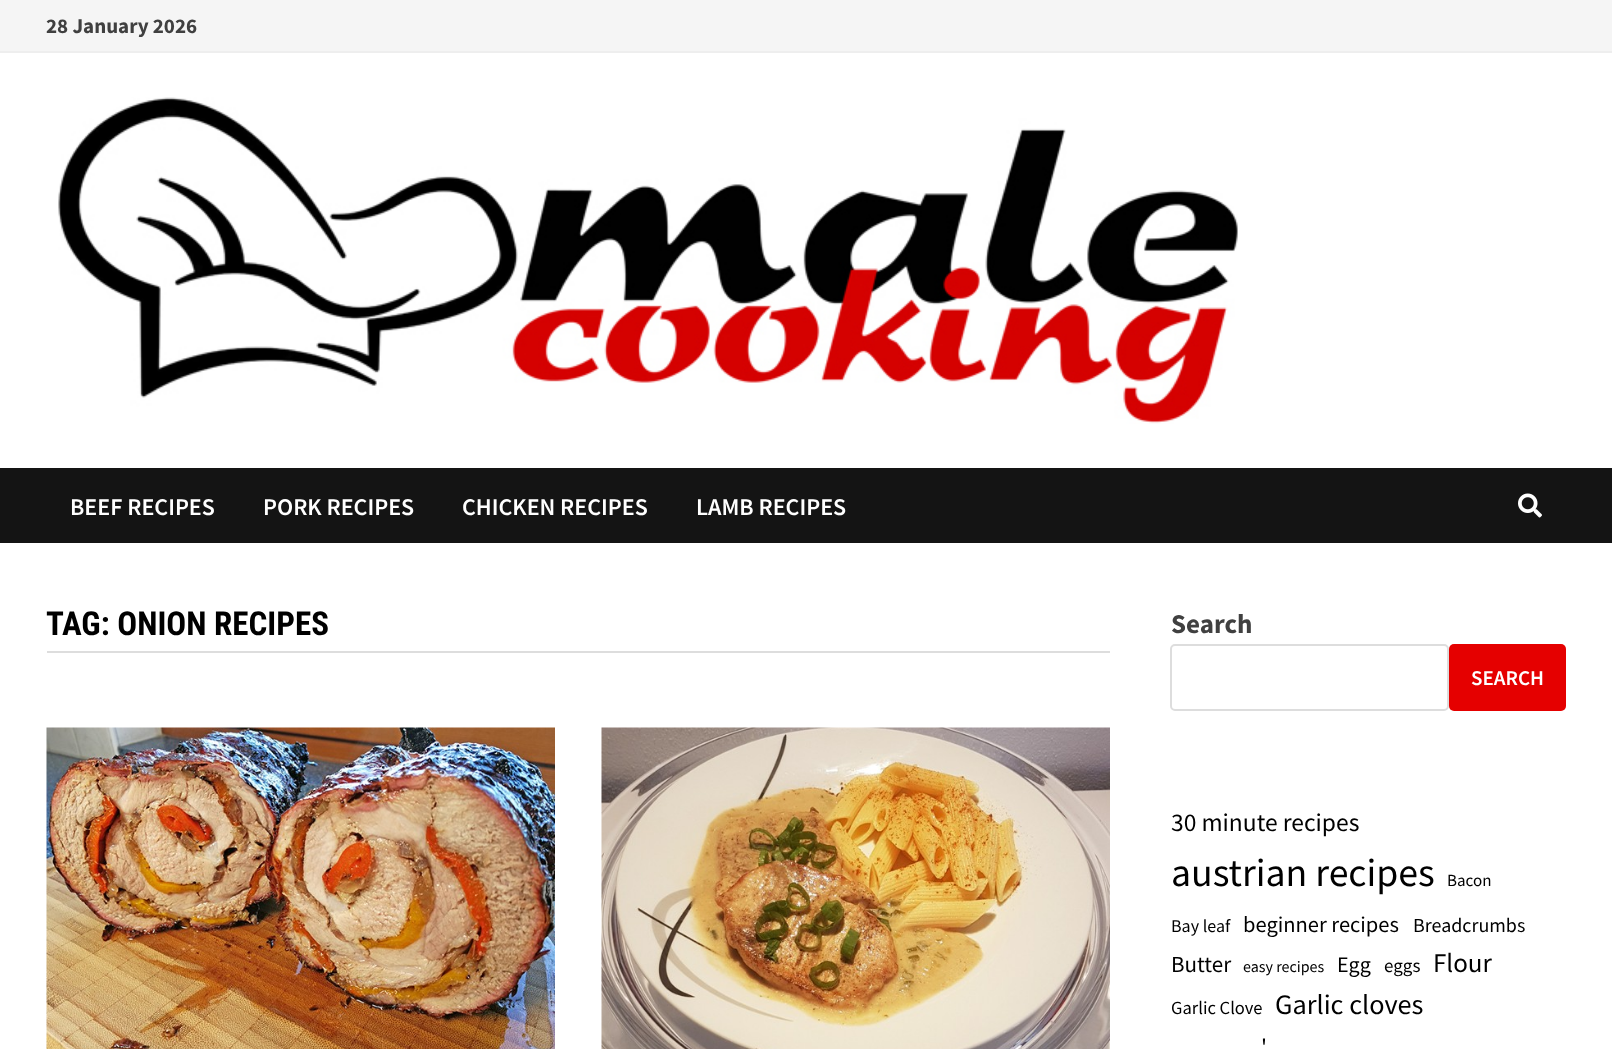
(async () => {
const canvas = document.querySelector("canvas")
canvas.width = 1612
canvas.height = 1049
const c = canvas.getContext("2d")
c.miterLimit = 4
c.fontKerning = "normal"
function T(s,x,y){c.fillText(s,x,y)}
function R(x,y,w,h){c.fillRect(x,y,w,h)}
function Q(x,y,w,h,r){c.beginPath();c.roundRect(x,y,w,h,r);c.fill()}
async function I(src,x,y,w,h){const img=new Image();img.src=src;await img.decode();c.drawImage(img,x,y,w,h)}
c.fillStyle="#fff"
R(0,0,1612,1049)
c.fillStyle="#f5f5f5"
R(0,0,1612,51)
c.fillStyle="#eee"
R(0,51,1612,2)
c.font="bold 21px Source Sans Pro"
c.fillStyle="#404040"
T("28 January 2026",46,33)
await I("1.png",58,97,1180,327)
c.fillStyle="#141414"
R(0,468,1612,75)
c.font="600 24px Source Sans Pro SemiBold"
c.fillStyle="#fff"
T("BEEF RECIPES",70,515)
T("PORK RECIPES",263,515)
T("CHICKEN RECIPES",462,515)
T("LAMB RECIPES",696,515)
await I("2.png",1518,493,24,25)
c.fillStyle="#ddd"
R(47,651,1063,2)
c.font="bold 33px Roboto Condensed"
c.fillStyle="#000"
T("TAG: ONION RECIPES",46,635)
await I("3.png",46,727,509,322)
await I("4.png",601,727,509,322)
c.font="bold 27px Source Sans Pro"
c.fillStyle="#404040"
T("Search",1171,633)
c.beginPath()
c.roundRect(1171,645,277,65,4)
c.strokeStyle="#ddd"
c.lineWidth=2
c.stroke()
c.fillStyle="#e50000"
Q(1449,644,117,67,5)
c.font="600 21px Source Sans Pro SemiBold"
c.fillStyle="#fff"
T("SEARCH",1471,685)
c.font="25.5px Source Sans Pro"
c.fillStyle="#000"
T("30 minute recipes",1171,831)
c.font="39.75px Source Sans Pro"
T("austrian recipes",1171,886)
c.font="17px Source Sans Pro"
T("Bacon",1447,886)
c.font="18px Source Sans Pro"
T("Bay leaf",1171,932)
c.font="22.5px Source Sans Pro"
T("beginner recipes",1243,932)
c.font="20px Source Sans Pro"
T("Breadcrumbs",1413,932)
c.font="23px Source Sans Pro"
T("Butter",1171,972)
c.font="16px Source Sans Pro"
T("easy recipes",1243,972)
c.font="22px Source Sans Pro"
T("Egg",1337,972)
c.font="19px Source Sans Pro"
T("eggs",1384,972)
c.font="27px Source Sans Pro"
T("Flour",1433,972)
c.font="18.5px Source Sans Pro"
T("Garlic Clove",1171,1014)
c.font="28.25px Source Sans Pro"
T("Garlic cloves",1275,1014)
c.font="24px Source Sans Pro"
T("'",1261,1055)
})()
